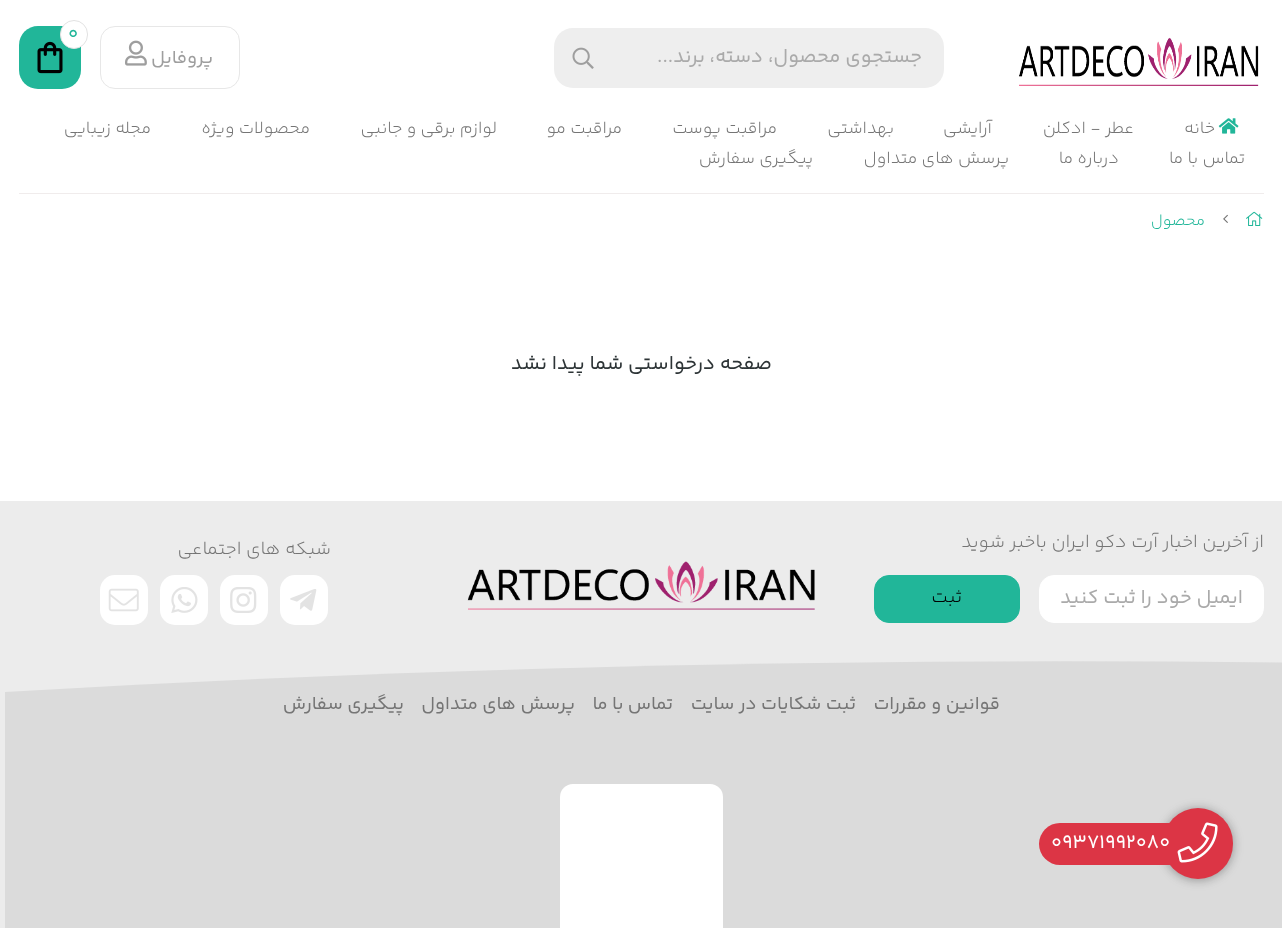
(async () => {
const canvas = document.querySelector("canvas")
canvas.width = 1282
canvas.height = 928
const c = canvas.getContext("2d")
c.miterLimit = 4
c.fontKerning = "normal"
function T(s,x,y){c.fillText(s,x,y)}
function R(x,y,w,h){c.fillRect(x,y,w,h)}
function Q(x,y,w,h,r){c.beginPath();c.roundRect(x,y,w,h,r);c.fill()}
async function I(src,x,y,w,h){const img=new Image();img.src=src;await img.decode();c.drawImage(img,x,y,w,h)}
let path
c.fillStyle="#fff"
R(0,0,1282,928)
await I("1.png",1019,37,240,49)
c.fillStyle="#eee"
Q(554,28,390,60,19)
c.direction="rtl"
c.font="20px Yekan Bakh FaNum"
c.fillStyle="#aaa"
T("جستجوی محصول، دسته، برند...",922,62)
await I("2.png",572,47,22,22)
c.fillStyle="#21b699"
Q(19,26,62,63,19)
await I("3.png",37,41,26,33)
c.fillStyle="#fff"
c.beginPath()
c.roundRect(60.5,20.5,27,28,13.5)
c.fill()
c.strokeStyle="#e2e2e2"
c.stroke()
c.direction="ltr"
c.font="18.75px Yekan Bakh FaNum"
c.fillStyle="#21b699"
T("0",68,39)
c.beginPath()
c.roundRect(100.5,26.5,139,62,14.5)
c.strokeStyle="#e7e7e7"
c.stroke()
c.direction="rtl"
c.fillStyle="#9e9e9e"
T("پروفایل",213,63)
await I("4.png",125,40,22,26)
await I("5.png",1218,118,21,16)
c.font="300 17.5px Yekan Bakh FaNum"
c.fillStyle="#757575"
T("خانه",1215,133)
T("عطر - ادکلن",1134,133)
T("آرایشی",992,133)
T("بهداشتی",894,133)
T("مراقبت پوست",777,133)
T("مراقبت مو",622,133)
T("لوازم برقی و جانبی",497,133)
T("محصولات ویژه",310,133)
T("مجله زیبایی",151,133)
T("تماس با ما",1245,163)
T("درباره ما",1119,163)
T("پرسش های متداول",1009,163)
T("پیگیری سفارش",813,163)
c.fillStyle="#f0ecec"
R(19,193,1245,1)
await I("6.png",1246,211,17,15)
await I("7.png",1223,214,5,9)
c.font="300 16px Yekan Bakh FaNum"
c.fillStyle="#21b699"
T("محصول",1205,225)
c.font="20px Yekan Bakh FaNum"
c.fillStyle="#2d3436"
T("صفحه درخواستی شما پیدا نشد",772,369)
c.fillStyle="#ececec"
R(0,501,1282,427)
c.font="300 18.75px Yekan Bakh FaNum"
c.fillStyle="#757575"
T("از آخرین اخبار آرت دکو ایران باخبر شوید",1264,547)
c.fillStyle="#fff"
c.beginPath()
c.roundRect(1039.5,575.5,224,47,14.5)
c.fill()
c.strokeStyle="#fff"
c.stroke()
c.save()
c.beginPath()
c.rect(1055,584,193,31)
c.clip()
c.font="20px Yekan Bakh FaNum"
c.fillStyle="#aaa"
T("ایمیل خود را ثبت کنید ...",1243,603)
c.restore()
c.fillStyle="#21b699"
c.beginPath()
c.roundRect(874.5,575.5,145,47,14.5)
c.fill()
c.strokeStyle="#21b699"
c.stroke()
c.fillStyle="#000"
T("ثبت",962,602)
c.fillStyle="#757575"
T("شبکه های اجتماعی",331,554)
c.fillStyle="#fff"
Q(280,575,48,50,15)
await I("8.png",290,589,27,22)
Q(220,575,48,50,15)
await I("9.png",230,587,27,26)
Q(160,575,48,50,15)
await I("10.png",171,587,27,26)
Q(100,575,48,50,15)
await I("11.png",108,588,31,24)
await I("12.png",467,561,348,49)
c.fillStyle="#dbdbdb"
path = new Path2D("M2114 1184h-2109v-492c702-41 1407-41 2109 0z")
c.fill(path)
c.font="18.5px Yekan Bakh FaNum"
c.fillStyle="#757575"
T("قوانین و مقررات",1000,709)
T("ثبت شکایات در سایت",856,709)
T("تماس با ما",673,709)
T("پرسش های متداول",575,709)
T("پیگیری سفارش",404,709)
c.fillStyle="#fff"
Q(560,784,163,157,13)
c.fillStyle="#00000026"
c.filter="blur(6px)"
c.beginPath()
c.roundRect(1163,809,70,71,35)
c.fill()
c.filter="none"
c.fillStyle="#00000033"
c.filter="blur(4px)"
c.beginPath()
c.roundRect(1163,809,70,71,35)
c.fill()
c.filter="none"
c.fillStyle="#dc3545"
Q(1163,808,70,71,35)
await I("13.png",1177,822,41,41)
c.beginPath()
c.roundRect(1039,823,131,42,[21,0,0,21])
c.fill()
c.direction="ltr"
c.font="20px Yekan Bakh FaNum"
c.fillStyle="#fff"
T("09371992080",1051,848)
})()
